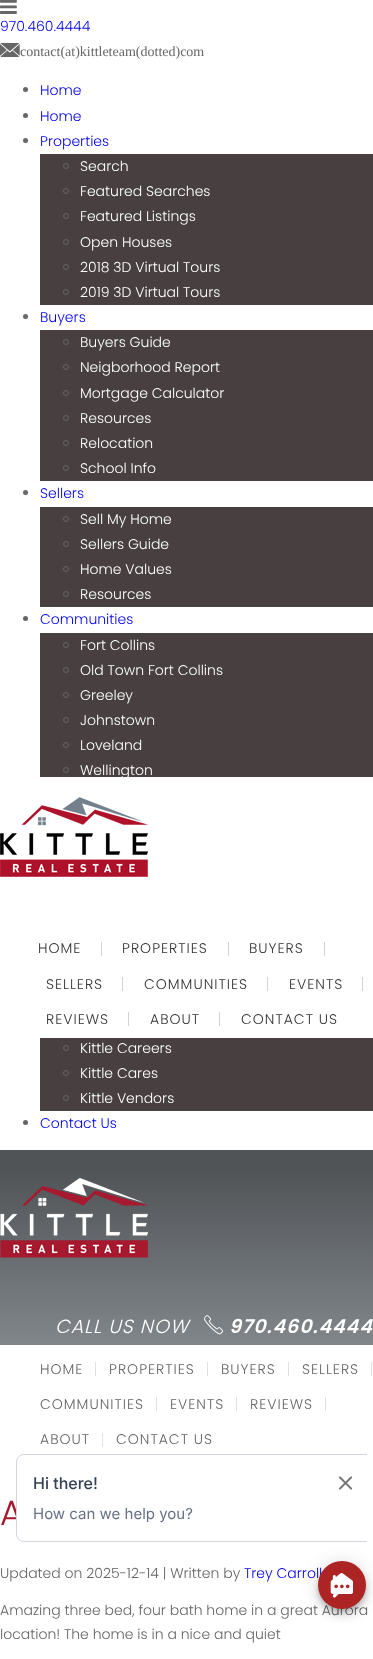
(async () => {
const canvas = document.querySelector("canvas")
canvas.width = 373
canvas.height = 1659
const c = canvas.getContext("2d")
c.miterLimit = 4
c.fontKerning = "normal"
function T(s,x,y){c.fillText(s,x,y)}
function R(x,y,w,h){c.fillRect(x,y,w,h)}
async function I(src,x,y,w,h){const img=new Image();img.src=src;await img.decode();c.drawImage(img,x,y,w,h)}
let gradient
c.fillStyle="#fff"
R(0,0,373,1659)
c.font="14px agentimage"
c.fillStyle="#666"
T("򰁰",0,13)
c.font="300 14px Poppins"
c.fillStyle="#00e"
T("970.460.4444",0,31)
c.font="14px agentimage"
c.fillStyle="#666"
T("򰄢",0,56)
c.font="14px Liberation Serif"
T("contact(at)kittleteam(dotted)com",20,56)
c.beginPath()
c.arc(25.5,89.5,2.5,0,7)
c.fill()
c.font="300 14px Poppins"
c.fillStyle="#00e"
T("Home",40,95)
c.fillStyle="#666"
c.beginPath()
c.arc(25.5,115.5,2.5,0,7)
c.fill()
c.fillStyle="#00e"
T("Home",40,121)
c.fillStyle="#666"
c.beginPath()
c.arc(25.5,140.5,2.5,0,7)
c.fill()
c.fillStyle="#00e"
T("Properties",40,146)
c.fillStyle="#484040"
R(40,154,333,151)
c.beginPath()
c.arc(66,166,2.5,0,7)
c.strokeStyle="#666"
c.stroke()
c.fillStyle="#fff"
T("Search",80,171)
c.beginPath()
c.arc(66,191,2.5,0,7)
c.stroke()
T("Featured Searches",80,196)
c.beginPath()
c.arc(66,216,2.5,0,7)
c.stroke()
T("Featured Listings",80,221)
c.beginPath()
c.arc(66,242,2.5,0,7)
c.stroke()
T("Open Houses",80,247)
c.beginPath()
c.arc(66,267,2.5,0,7)
c.stroke()
T("2018 3D Virtual Tours",80,272)
c.beginPath()
c.arc(66,292,2.5,0,7)
c.stroke()
T("2019 3D Virtual Tours",80,297)
c.fillStyle="#666"
c.beginPath()
c.arc(25.5,316.5,2.5,0,7)
c.fill()
c.fillStyle="#00e"
T("Buyers",40,322)
c.fillStyle="#484040"
R(40,330,333,151)
c.beginPath()
c.arc(66,342,2.5,0,7)
c.stroke()
c.fillStyle="#fff"
T("Buyers Guide",80,347)
c.beginPath()
c.arc(66,367,2.5,0,7)
c.stroke()
T("Neigborhood Report",80,372)
c.beginPath()
c.arc(66,393,2.5,0,7)
c.stroke()
T("Mortgage Calculator",80,398)
c.beginPath()
c.arc(66,418,2.5,0,7)
c.stroke()
T("Resources",80,423)
c.beginPath()
c.arc(66,443,2.5,0,7)
c.stroke()
T("Relocation",80,448)
c.beginPath()
c.arc(66,468,2.5,0,7)
c.stroke()
T("School Info",80,473)
c.fillStyle="#666"
c.beginPath()
c.arc(25.5,492.5,2.5,0,7)
c.fill()
c.fillStyle="#00e"
T("Sellers",40,498)
c.fillStyle="#484040"
R(40,507,333,100)
c.beginPath()
c.arc(66,519,2.5,0,7)
c.stroke()
c.fillStyle="#fff"
T("Sell My Home",80,524)
c.beginPath()
c.arc(66,544,2.5,0,7)
c.stroke()
T("Sellers Guide",80,549)
c.beginPath()
c.arc(66,569,2.5,0,7)
c.stroke()
T("Home Values",80,574)
c.beginPath()
c.arc(66,594,2.5,0,7)
c.stroke()
T("Resources",80,599)
c.fillStyle="#666"
c.beginPath()
c.arc(25.5,618.5,2.5,0,7)
c.fill()
c.fillStyle="#00e"
T("Communities",40,624)
c.fillStyle="#484040"
R(40,633,333,144)
c.beginPath()
c.arc(66,645,2.5,0,7)
c.stroke()
c.fillStyle="#fff"
T("Fort Collins",80,650)
c.beginPath()
c.arc(66,670,2.5,0,7)
c.stroke()
T("Old Town Fort Collins",80,675)
c.beginPath()
c.arc(66,695,2.5,0,7)
c.stroke()
T("Greeley",80,700)
c.beginPath()
c.arc(66,720,2.5,0,7)
c.stroke()
T("Johnstown",80,725)
c.beginPath()
c.arc(66,745,2.5,0,7)
c.stroke()
T("Loveland",80,750)
c.beginPath()
c.arc(66,770,2.5,0,7)
c.stroke()
T("Wellington",80,775)
c.fillStyle="#484040"
R(40,1038,333,73)
c.beginPath()
c.arc(66,1048,2.5,0,7)
c.stroke()
c.fillStyle="#fff"
T("Kittle Careers",80,1053)
c.beginPath()
c.arc(66,1073,2.5,0,7)
c.stroke()
T("Kittle Cares",80,1078)
c.beginPath()
c.arc(66,1098,2.5,0,7)
c.stroke()
T("Kittle Vendors",80,1103)
c.fillStyle="#666"
c.beginPath()
c.arc(25.5,1122.5,2.5,0,7)
c.fill()
c.fillStyle="#00e"
T("Contact Us",40,1128)
await I("1.png",0,797,148,80)
c.letterSpacing="1px"
c.fillStyle="#333"
T("HOME",38,953)
c.fillStyle="#d3d3d3"
R(101,942,1,14)
c.fillStyle="#333"
T("PROPERTIES",122,953)
c.fillStyle="#d3d3d3"
R(228,942,1,14)
c.fillStyle="#333"
T("BUYERS",249,953)
c.fillStyle="#d3d3d3"
R(324,942,1,14)
c.fillStyle="#333"
T("SELLERS",46,989)
c.fillStyle="#d3d3d3"
R(122,977,1,14)
c.fillStyle="#333"
T("COMMUNITIES",144,989)
c.fillStyle="#d3d3d3"
R(267,977,1,14)
c.fillStyle="#333"
T("EVENTS",289,989)
c.fillStyle="#d3d3d3"
R(362,977,1,14)
c.fillStyle="#333"
T("REVIEWS",46,1024)
c.fillStyle="#d3d3d3"
R(128,1012,1,14)
c.fillStyle="#333"
T("ABOUT",150,1024)
c.fillStyle="#d3d3d3"
R(219,1012,1,14)
c.fillStyle="#333"
T("CONTACT US",241,1024)
gradient = c.createLinearGradient(187,1150,187,1345)
gradient.addColorStop(.1,"#505457")
gradient.addColorStop(1,"#81868b")
c.fillStyle = gradient
R(0,1150,373,195)
await I("2.png",0,1178,148,80)
c.font="italic 300 19px Poppins"
c.fillStyle="#fff"
T("CALL US NOW",55,1333)
c.font="19px agentimage"
T("򰁨",204,1333)
c.font="italic 600 19px Poppins"
T("970.460.4444",229,1333)
c.font="300 14px Poppins"
c.fillStyle="#666"
T("HOME",40,1374)
c.fillStyle="#e0e0e0"
R(95,1362,1,14)
c.fillStyle="#666"
T("PROPERTIES",109,1374)
c.fillStyle="#e0e0e0"
R(207,1362,1,14)
c.fillStyle="#666"
T("BUYERS",221,1374)
c.fillStyle="#e0e0e0"
R(288,1362,1,14)
c.fillStyle="#666"
T("SELLERS",302,1374)
c.fillStyle="#e0e0e0"
R(371,1362,1,14)
c.fillStyle="#666"
T("COMMUNITIES",40,1409)
c.fillStyle="#e0e0e0"
R(156,1397,1,14)
c.fillStyle="#666"
T("EVENTS",170,1409)
c.fillStyle="#e0e0e0"
R(236,1397,1,14)
c.fillStyle="#666"
T("REVIEWS",250,1409)
c.fillStyle="#e0e0e0"
R(325,1397,1,14)
c.fillStyle="#666"
T("ABOUT",40,1444)
c.fillStyle="#e0e0e0"
R(102,1433,1,14)
c.fillStyle="#666"
T("CONTACT US",116,1444)
c.letterSpacing="0px"
c.font="300 35px Poppins"
c.fillStyle="#a6192e"
T("A",0,1525)
c.font="300 14px Poppins"
c.fillStyle="#666"
T("Updated on 2025-12-14 | Written by",0,1578)
c.fillStyle="#00e"
T("Trey Carroll",244,1578)
c.fillStyle="#666"
T("Amazing three bed, four bath home in a great Aurora",0,1615)
T("location! The home is in a nice and quiet",0,1639)
c.fillStyle="#0000001f"
c.filter="blur(9px)"
c.beginPath()
c.roundRect(318,1562,48,48,24)
c.fill()
c.filter="none"
c.fillStyle="#fff"
c.beginPath()
c.roundRect(16,1454,351,88,[8,0,0,8])
c.fill()
c.save()
c.beginPath()
c.rect(8,1454,359,88)
c.clip()
c.beginPath()
c.roundRect(16.5,1454.5,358,87,7.5)
c.strokeStyle="#d0d5dd"
c.stroke()
c.restore()
c.font="500 16px Inter"
c.fillStyle="#344054"
T("Hi there!",33,1489)
await I("3.png",339,1476,14,14)
c.font="15px Inter"
c.fillStyle="#667085"
T("How can we help you?",33,1519)
c.fillStyle="#00000024"
c.filter="blur(5px)"
c.beginPath()
c.roundRect(318,1567,48,48,24)
c.fill()
c.filter="none"
c.fillStyle="#00000033"
c.filter="blur(2.5px)"
c.beginPath()
c.roundRect(319,1565,46,46,23)
c.fill()
c.filter="none"
c.fillStyle="#ac2524"
c.beginPath()
c.arc(342,1585,24,0,7)
c.fill()
await I("4.png",330,1573,23,25)
})()
